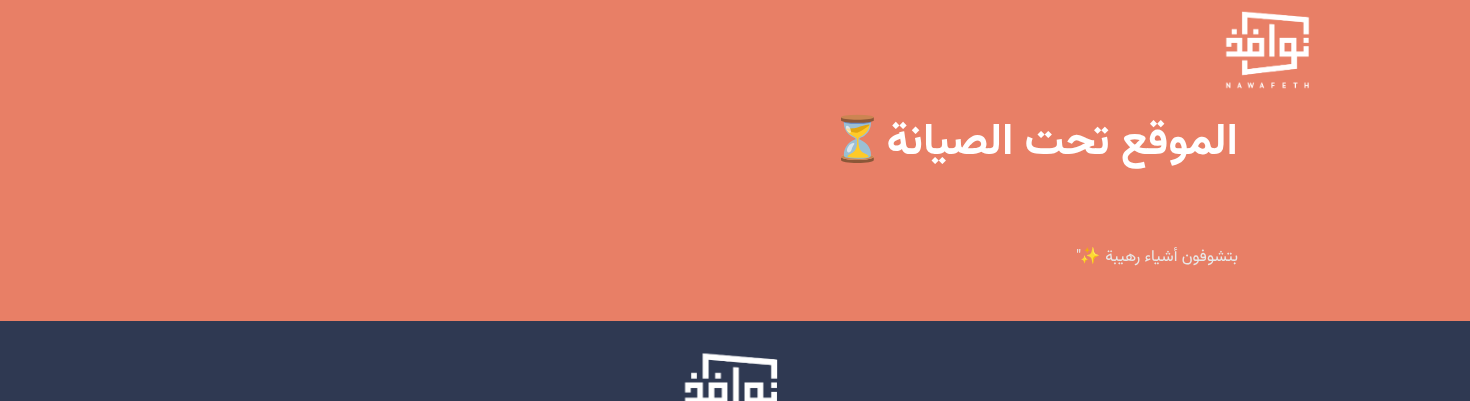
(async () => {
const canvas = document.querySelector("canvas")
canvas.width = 1470
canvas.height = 401
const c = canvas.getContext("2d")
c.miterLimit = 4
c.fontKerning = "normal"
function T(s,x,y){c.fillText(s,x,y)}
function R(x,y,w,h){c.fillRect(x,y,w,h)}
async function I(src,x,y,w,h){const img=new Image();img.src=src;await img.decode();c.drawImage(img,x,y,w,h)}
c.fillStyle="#e87f66"
R(0,0,1470,401)
await I("1.png",1225,11,85,78)
c.direction="rtl"
c.font="bold 44px Vazirmatn"
c.fillStyle="#fff"
T("الموقع تحت الصيانة",1238,154)
c.font="bold 44px Noto Color Emoji"
T("⏳",885,154)
c.font="16px Vazirmatn"
c.fillStyle="#e8e8e8"
T("بتشوفون أشياء رهيبة",1238,261)
c.font="16px Noto Color Emoji"
T("✨",1100,261)
c.font="16px Vazirmatn"
T("\"",1081,261)
c.fillStyle="#2f3952"
R(0,321,1470,80)
await I("2.png",684,353,94,48)
})()
